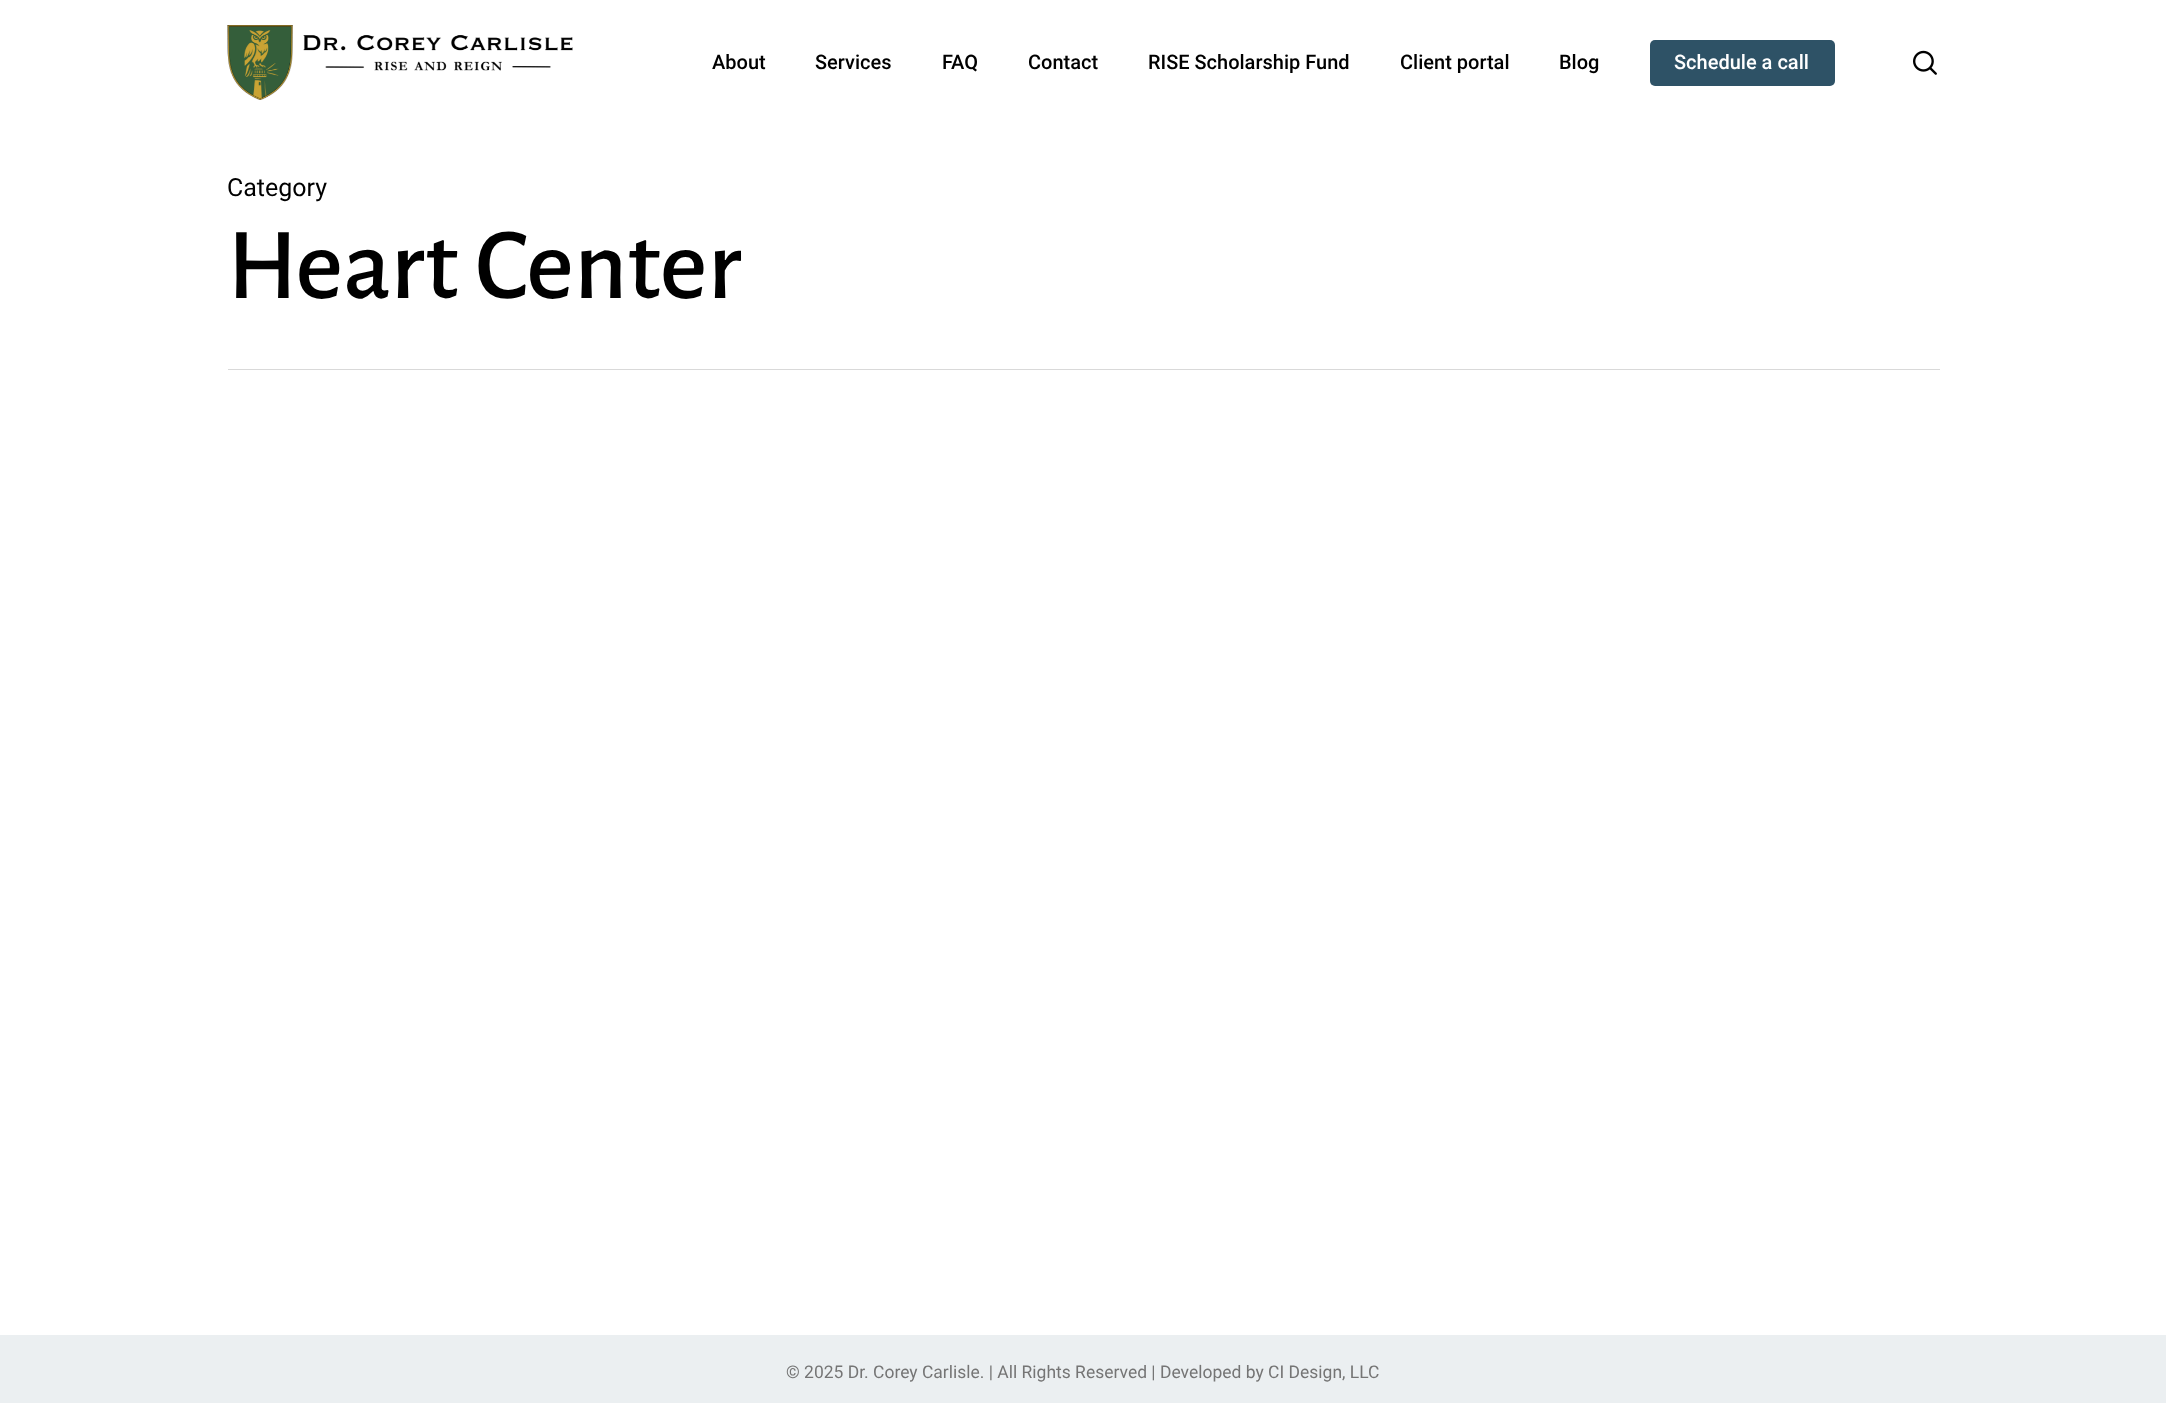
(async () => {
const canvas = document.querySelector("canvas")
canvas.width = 2166
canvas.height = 1403
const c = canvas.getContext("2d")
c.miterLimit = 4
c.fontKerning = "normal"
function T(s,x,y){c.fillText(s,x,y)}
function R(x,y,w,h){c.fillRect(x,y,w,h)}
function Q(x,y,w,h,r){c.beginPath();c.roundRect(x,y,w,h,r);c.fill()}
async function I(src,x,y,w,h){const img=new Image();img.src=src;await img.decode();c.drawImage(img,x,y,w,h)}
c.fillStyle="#fff"
R(0,0,2166,1403)
await I("1.png",227,25,346,75)
c.font="500 20px Roboto"
c.fillStyle="#000"
T("About",712,69)
T("Services",815,69)
T("FAQ",942,69)
T("Contact",1028,69)
T("RISE Scholarship Fund",1148,69)
T("Client portal",1400,69)
T("Blog",1559,69)
c.fillStyle="#2e5266"
Q(1650,40,185,46,5)
c.fillStyle="#fff"
T("Schedule a call",1674,69)
await I("2.png",1913,50,24,25)
c.fillStyle="#d9d9d9"
R(228,369,1712,1)
c.font="25px Roboto"
c.fillStyle="#000"
T("Category",227,196)
c.font="500 102.5px Alegreya Sans"
T("Heart Center",227,298)
c.fillStyle="#ebeff1"
R(0,1335,2166,68)
c.font="17.5px Roboto"
c.fillStyle="#757575"
T("© 2025 Dr. Corey Carlisle. | All Rights Reserved | Developed by CI Design, LLC",786,1378)
})()
